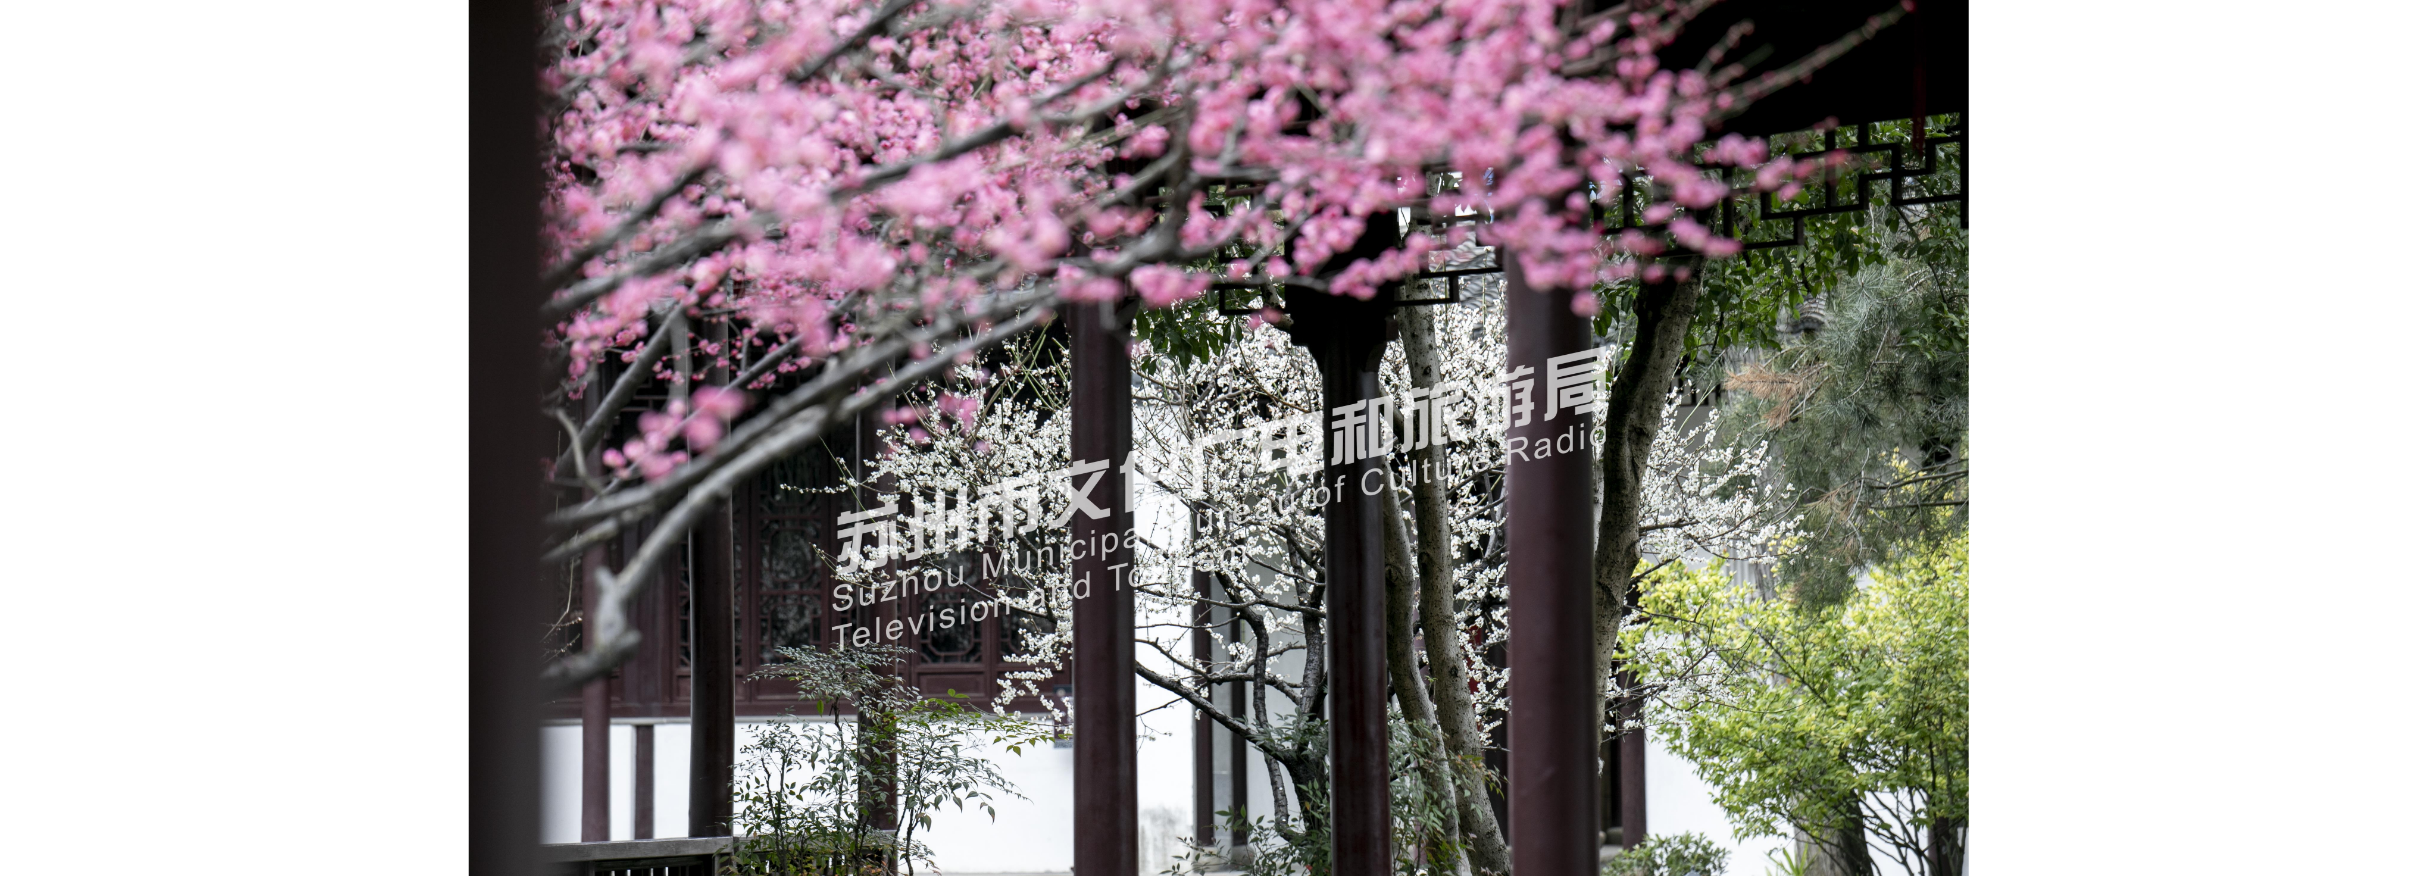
(async () => {
const canvas = document.querySelector("canvas")
canvas.width = 2436
canvas.height = 876
const c = canvas.getContext("2d")
c.miterLimit = 4
c.fontKerning = "normal"
function R(x,y,w,h){c.fillRect(x,y,w,h)}
async function I(src,x,y,w,h){const img=new Image();img.src=src;await img.decode();c.drawImage(img,x,y,w,h)}
c.fillStyle="#fff"
R(0,0,2436,876)
await I("1.png",468,0,1501,876)
})()
